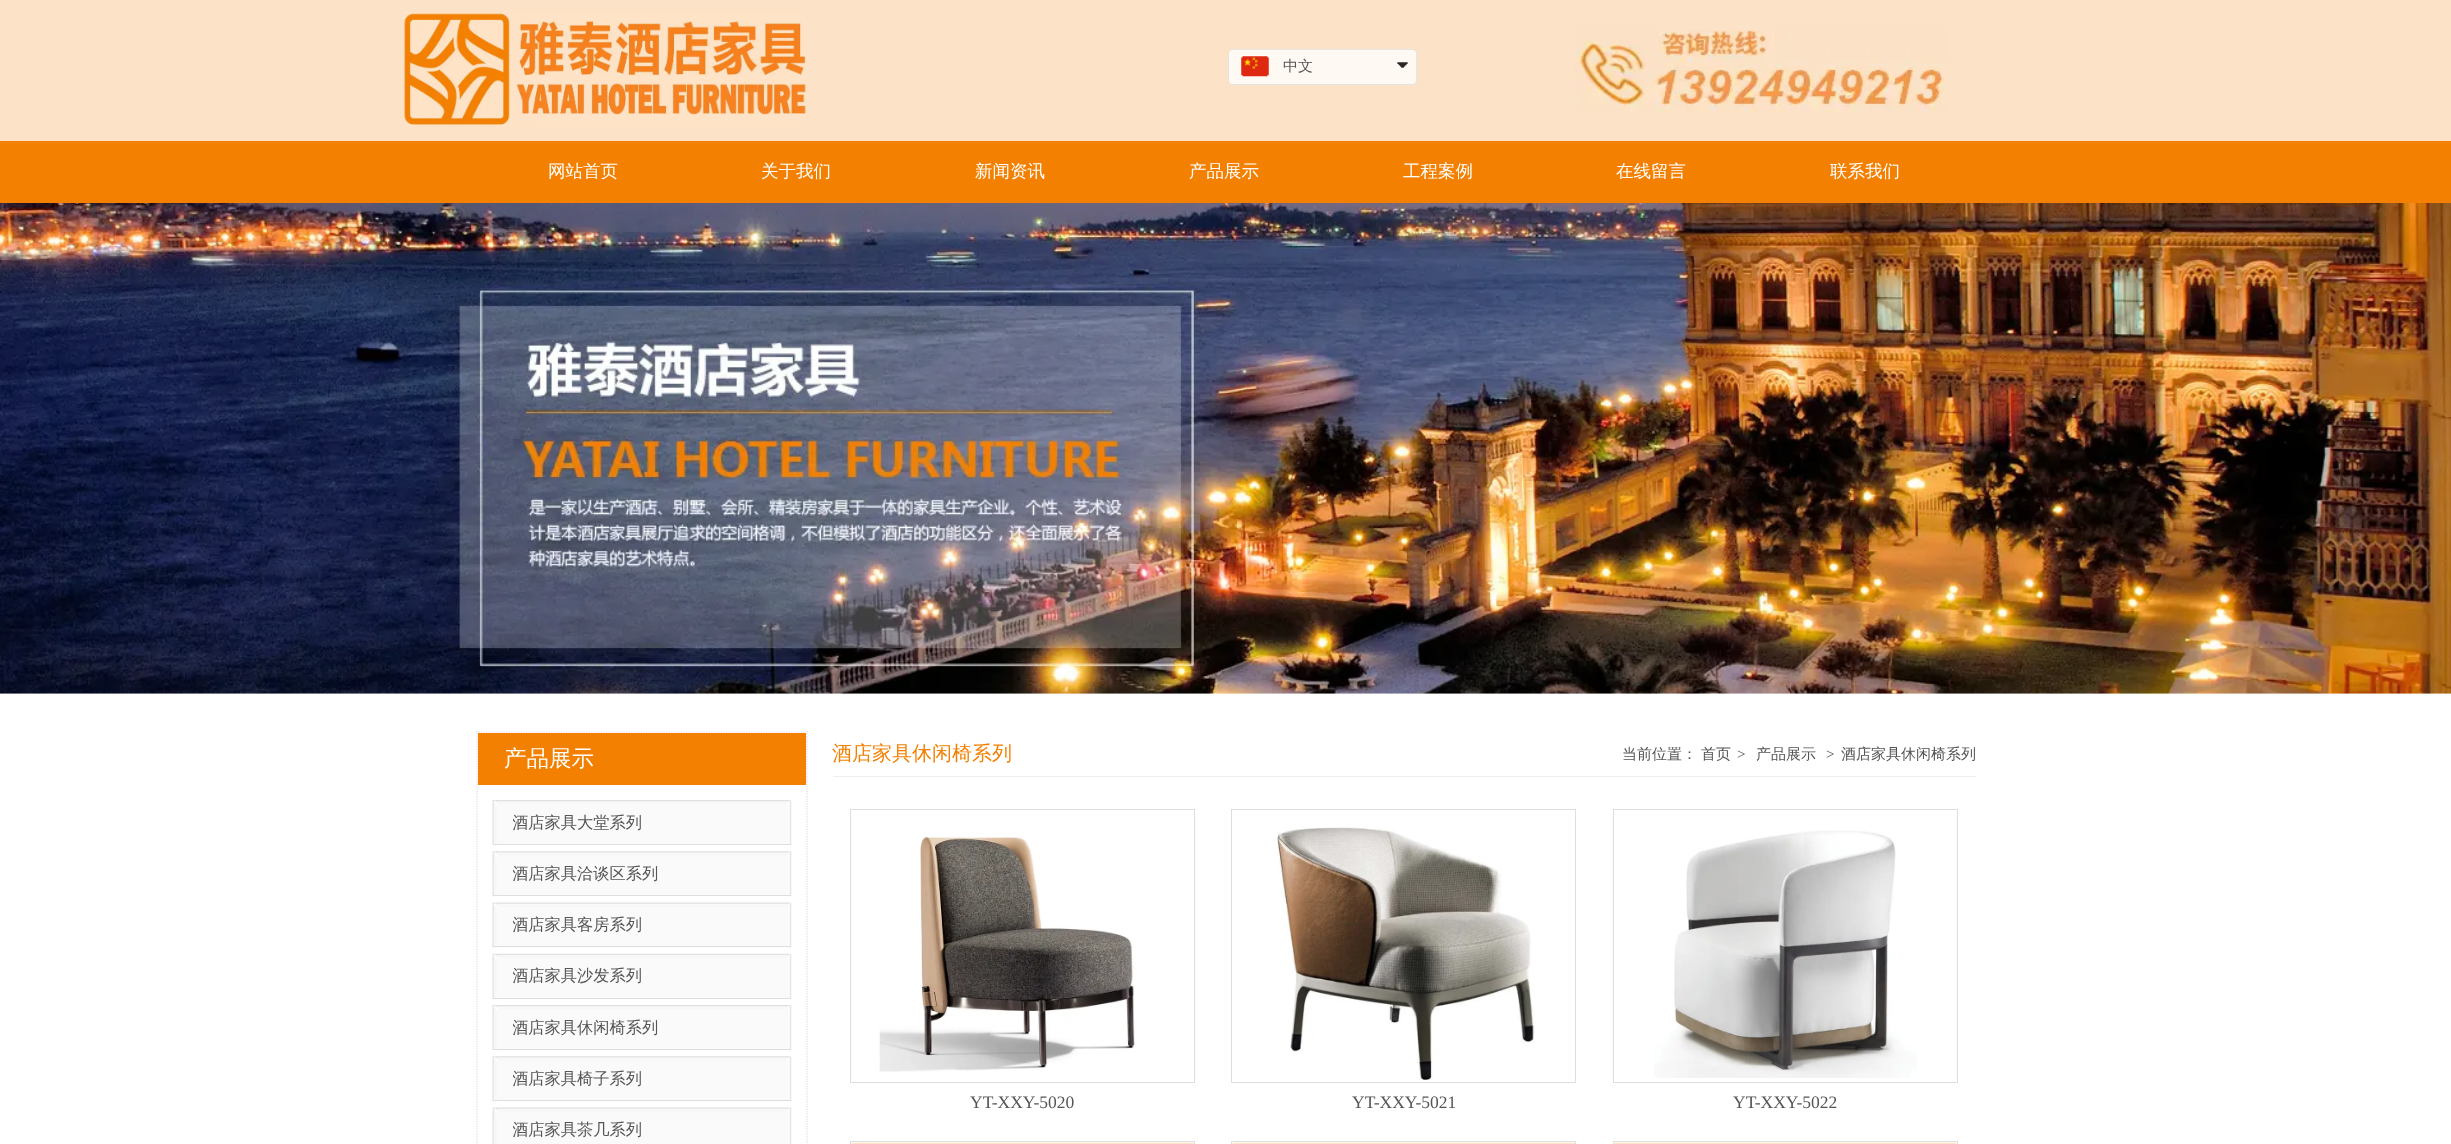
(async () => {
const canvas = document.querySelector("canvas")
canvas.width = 2451
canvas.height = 1144
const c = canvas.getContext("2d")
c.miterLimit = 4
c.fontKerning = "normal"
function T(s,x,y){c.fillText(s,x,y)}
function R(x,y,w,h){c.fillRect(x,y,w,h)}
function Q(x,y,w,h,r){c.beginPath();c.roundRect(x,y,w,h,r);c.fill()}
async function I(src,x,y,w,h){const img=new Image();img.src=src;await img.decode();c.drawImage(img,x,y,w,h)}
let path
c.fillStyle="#fff"
R(0,0,2451,1144)
c.fillStyle="#fce2c6"
R(0,0,2451,141)
await I("1.png",403,12,403,114)
c.beginPath()
c.roundRect(1228.5,49.5,189,35,4.5)
c.strokeStyle="#e4e4e4"
c.stroke()
c.fillStyle="#ffffffcc"
Q(1229,50,187,34,4)
await I("2.png",1241,56,28,21)
c.font="500 15px WenQuanYi Zen Hei"
c.fillStyle="#555"
T("中文",1283,71)
await I("3.png",1397,62,11,6)
await I("4.png",1397,62,11,6)
await I("5.png",1575,30,371,82)
c.fillStyle="#f38000"
R(0,141,2451,62)
c.font="500 17.5px WenQuanYi Zen Hei"
c.fillStyle="#fff"
T("网站首页",548,177)
T("关于我们",761,177)
T("新闻资讯",975,177)
T("产品展示",1189,177)
T("工程案例",1403,177)
T("在线留言",1616,177)
T("联系我们",1830,177)
await I("6.png",0,203,2451,491)
path = new Path2D("M476 732h331.5")
c.strokeStyle="#dedede"
c.lineWidth=1.2
c.setLineDash([1.25,1.25])
c.stroke(path)
path = new Path2D("M807 731v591.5")
c.stroke(path)
path = new Path2D("M477 731v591.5")
c.stroke(path)
c.fillStyle="#f38000"
R(478,733,328,52)
c.font="500 22.5px WenQuanYi Zen Hei"
c.fillStyle="#fff"
T("产品展示",504,766)
await I("7.png",492,800,300,45)
c.fillStyle="#dedede"
R(493,844,298,1)
c.save()
c.beginPath()
c.rect(513,800,258,45)
c.clip()
c.font="500 16.25px WenQuanYi Zen Hei"
c.fillStyle="#555"
T("酒店家具大堂系列",512,828)
c.restore()
await I("8.png",492,851,300,46)
R(493,895,298,1)
c.save()
c.beginPath()
c.rect(513,851,258,45)
c.clip()
c.font="500 16.25px WenQuanYi Zen Hei"
c.fillStyle="#555"
T("酒店家具洽谈区系列",512,879)
c.restore()
await I("9.png",492,902,300,46)
R(493,946,298,1)
c.save()
c.beginPath()
c.rect(513,903,258,45)
c.clip()
c.font="500 16.25px WenQuanYi Zen Hei"
c.fillStyle="#555"
T("酒店家具客房系列",512,930)
c.restore()
await I("10.png",492,953,300,46)
R(493,998,298,1)
c.save()
c.beginPath()
c.rect(513,954,258,45)
c.clip()
c.font="500 16.25px WenQuanYi Zen Hei"
c.fillStyle="#555"
T("酒店家具沙发系列",512,981)
c.restore()
await I("7.png",492,1005,300,45)
R(493,1049,298,1)
c.save()
c.beginPath()
c.rect(513,1005,258,45)
c.clip()
c.font="500 16.25px WenQuanYi Zen Hei"
c.fillStyle="#555"
T("酒店家具休闲椅系列",512,1033)
c.restore()
await I("8.png",492,1056,300,46)
R(493,1100,298,1)
c.save()
c.beginPath()
c.rect(513,1056,258,45)
c.clip()
c.font="500 16.25px WenQuanYi Zen Hei"
c.fillStyle="#555"
T("酒店家具椅子系列",512,1084)
c.restore()
await I("11.png",492,1107,300,37)
c.save()
c.beginPath()
c.rect(513,1108,258,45)
c.clip()
c.font="500 16.25px WenQuanYi Zen Hei"
c.fillStyle="#555"
T("酒店家具茶几系列",512,1135)
c.restore()
c.fillStyle="#eee"
R(833,776,1143,1)
c.font="500 20px WenQuanYi Zen Hei"
c.fillStyle="#f38000"
T("酒店家具休闲椅系列",832,760)
c.font="500 15px WenQuanYi Zen Hei"
c.fillStyle="#555"
T("当前位置：",1622,759)
T("首页",1701,759)
c.font="15px Liberation Serif"
T(">",1737,759)
c.font="500 15px WenQuanYi Zen Hei"
T("产品展示",1756,759)
c.font="15px Liberation Serif"
T(">",1826,759)
c.font="500 15px WenQuanYi Zen Hei"
T("酒店家具休闲椅系列",1841,759)
c.lineWidth=1
c.setLineDash([])
c.strokeRect(850.5,809.5,344,273)
await I("12.png",879,836,256,236)
c.font="17.5px Liberation Serif"
T("YT-XXY-5020",970,1108)
c.strokeRect(1231.5,809.5,344,273)
await I("13.png",1277,827,258,253)
T("YT-XXY-5021",1352,1108)
c.strokeRect(1613.5,809.5,344,273)
await I("14.png",1654,830,263,248)
T("YT-XXY-5022",1733,1108)
c.strokeRect(850.5,1141.5,344,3)
await I("15.png",851,1142,343,2)
c.strokeRect(1231.5,1141.5,344,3)
await I("16.png",1232,1142,343,2)
c.strokeRect(1613.5,1141.5,344,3)
await I("17.png",1613,1142,344,2)
})()
